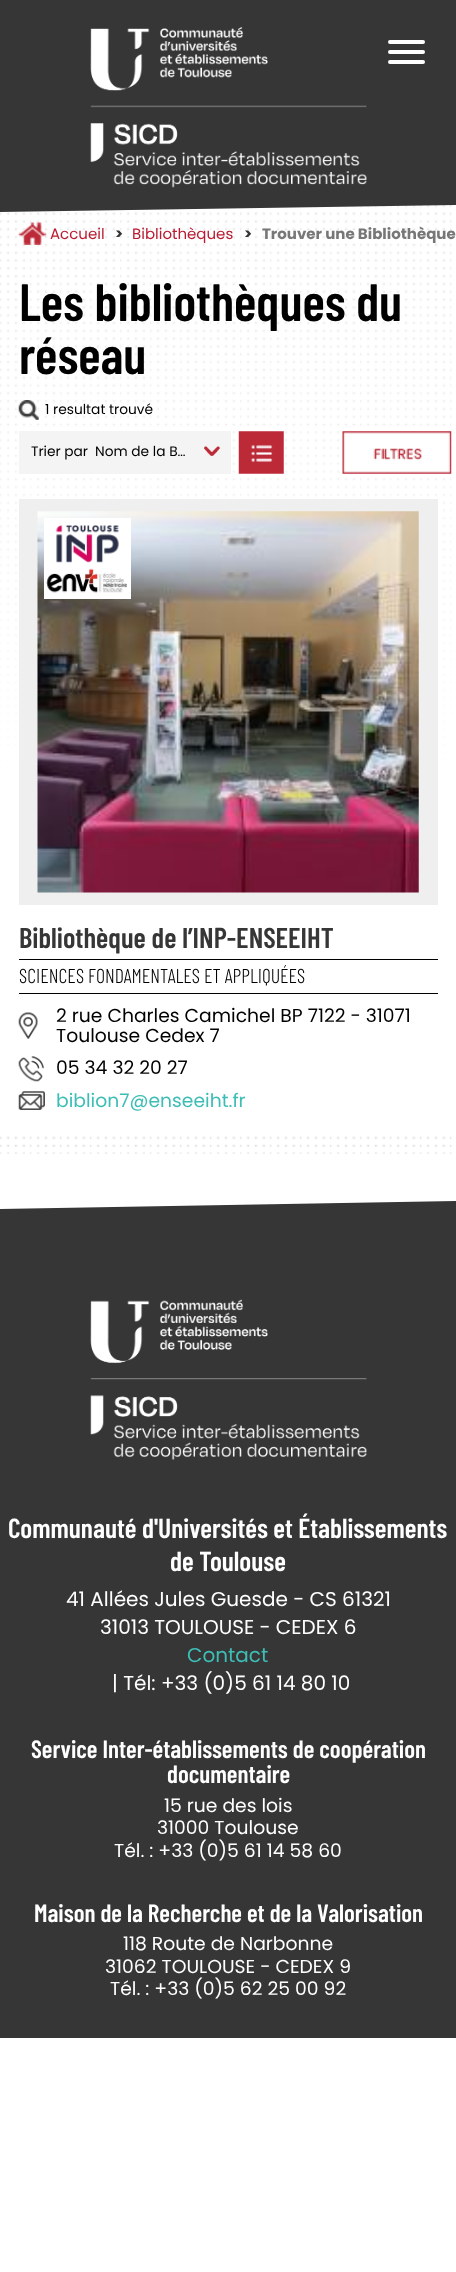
(async () => {
const canvas = document.querySelector("canvas")
canvas.width = 456
canvas.height = 2272
const c = canvas.getContext("2d")
c.miterLimit = 4
c.fontKerning = "normal"
function T(s,x,y){c.fillText(s,x,y)}
function R(x,y,w,h){c.fillRect(x,y,w,h)}
function Q(x,y,w,h,r){c.beginPath();c.roundRect(x,y,w,h,r);c.fill()}
async function I(src,x,y,w,h){const img=new Image();img.src=src;await img.decode();c.drawImage(img,x,y,w,h)}
let gradient, path
c.fillStyle="#fff"
R(0,0,456,2272)
await I("1.png",0,205,452,605)
gradient = c.createLinearGradient(228,2038,228,0)
gradient.addColorStop(.6,"#fff")
gradient.addColorStop(1,"#ffffff00")
c.fillStyle = gradient
R(0,205,452,604)
c.fillStyle="#363636"
path = new Path2D("M0 0l456-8v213l-456 7z")
c.fill(path)
await I("2.png",90,27,277,161)
c.fillStyle="#fff"
Q(388,40,37,4,2)
Q(388,50,37,4,2)
Q(388,60,37,4,2)
await I("3.png",18,222,29,23)
c.font="15px Poppins"
c.fillStyle="#b91c32"
T("Accueil",50,239)
c.font="bold 15px Poppins"
c.fillStyle="#363636"
T(">",115,239)
c.font="15px Poppins"
c.fillStyle="#b91c32"
T("Bibliothèques",132,239)
c.font="bold 15px Poppins"
c.fillStyle="#363636"
T(">",244,239)
c.fillStyle="#777"
T("Trouver une Bibliothèque",262,239)
c.font="600 52.5px Barlow Condensed"
c.fillStyle="#000"
T("Les bibliothèques du",19,321)
T("réseau",19,374)
await I("4.png",18,400,21,20)
c.font="13.75px Poppins"
T("1 resultat trouvé",45,414)
c.fillStyle="#f4f4f4"
R(19,431,212,43)
await I("5.png",204,446,16,10)
c.fillStyle="#000"
T("Trier par",31,456)
T("Nom de la B…",95,456)
await I("6.png",238,431,46,43)
await I("7.png",342,431,110,43)
c.fillStyle="#efefef"
R(19,499,419,406)
await I("8.png",37,511,382,382)
c.fillStyle="#fff"
R(44,518,87,81)
await I("9.png",46,525,81,68)
c.font="600 28.75px Barlow Condensed"
c.fillStyle="#363636"
T("Bibliothèque de l’INP-ENSEEIHT",19,948)
c.fillStyle="#000"
R(19,959,419,1)
R(19,993,419,1)
c.font="300 20px Barlow Condensed"
T("SCIENCES FONDAMENTALES ET APPLIQUÉES",19,983)
await I("10.png",18,1012,20,27)
c.font="18.75px Poppins"
T("2 rue Charles Camichel BP 7122 - 31071",56,1022)
T("Toulouse Cedex 7",56,1042)
await I("11.png",18,1056,26,26)
T("05 34 32 20 27",56,1074)
await I("12.png",18,1091,27,19)
c.fillStyle="#3dbdb6"
T("biblion7@enseeiht.fr",56,1107)
await I("13.png",0,1136,452,18)
c.fillStyle="#363636"
path = new Path2D("M0 1209l456-8v415l-456 8z")
c.fill(path)
R(0,1616,456,422)
await I("14.png",90,1299,277,161)
c.font="600 27.5px Barlow Condensed"
c.fillStyle="#fff"
T("Communauté d'Universités et Établissements",8,1538)
T("de Toulouse",170,1571)
c.font="20px Poppins"
T("41 Allées Jules Guesde - CS 61321",66,1606)
T("31013 TOULOUSE - CEDEX 6",100,1634)
c.fillStyle="#3dbdb6"
T("Contact",187,1662)
c.fillStyle="#fff"
T("| Tél: +33 (0)5 61 14 80 10",112,1690)
c.font="600 25px Barlow Condensed"
T("Service Inter-établissements de coopération",31,1758)
T("documentaire",167,1783)
c.font="18.75px Poppins"
T("15 rue des lois",164,1812)
T("31000 Toulouse",157,1834)
T("Tél. : +33 (0)5 61 14 58 60",114,1857)
c.font="600 25px Barlow Condensed"
T("Maison de la Recherche et de la Valorisation",34,1922)
c.font="18.75px Poppins"
T("118 Route de Narbonne",123,1950)
T("31062 TOULOUSE - CEDEX 9",105,1973)
T("Tél. : +33 (0)5 62 25 00 92",110,1995)
})()
